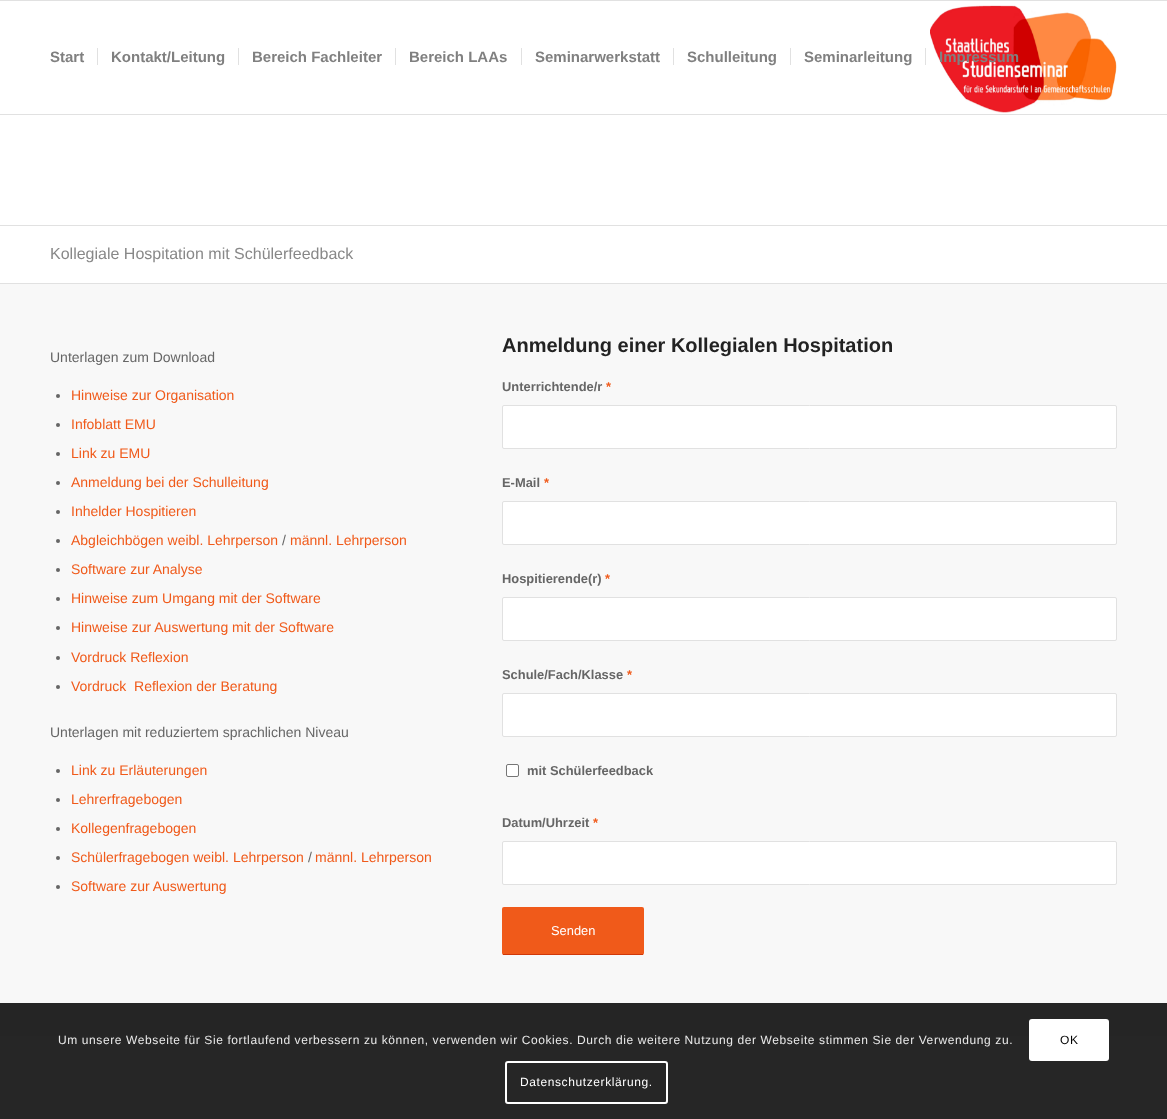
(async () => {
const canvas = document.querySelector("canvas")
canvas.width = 1167
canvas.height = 1119
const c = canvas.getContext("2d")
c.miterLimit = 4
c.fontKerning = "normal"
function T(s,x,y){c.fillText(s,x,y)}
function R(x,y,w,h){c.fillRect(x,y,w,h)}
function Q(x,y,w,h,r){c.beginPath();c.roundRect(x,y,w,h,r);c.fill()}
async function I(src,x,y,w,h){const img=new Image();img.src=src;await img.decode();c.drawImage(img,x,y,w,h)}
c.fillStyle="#fff"
R(0,0,1167,1119)
c.fillStyle="#262626"
R(0,1036,1167,83)
c.fillStyle="#e1e1e1"
R(0,0,1167,1)
R(0,114,1167,1)
c.font="bold 15px Liberation Sans"
c.fillStyle="#808080"
T("Start",50,62)
T("Kontakt/Leitung",111,62)
c.fillStyle="#e1e1e1"
R(97,48,1,17)
c.fillStyle="#808080"
T("Bereich Fachleiter",252,62)
c.fillStyle="#e1e1e1"
R(238,48,1,17)
c.fillStyle="#808080"
T("Bereich LAAs",409,62)
c.fillStyle="#e1e1e1"
R(395,48,1,17)
c.fillStyle="#808080"
T("Seminarwerkstatt",535,62)
c.fillStyle="#e1e1e1"
R(521,48,1,17)
c.fillStyle="#808080"
T("Schulleitung",687,62)
c.fillStyle="#e1e1e1"
R(673,48,1,17)
c.fillStyle="#808080"
T("Seminarleitung",804,62)
c.fillStyle="#e1e1e1"
R(790,48,1,17)
await I("1.png",930,5,187,108)
c.fillStyle="#808080"
T("Impressum",939,62)
c.fillStyle="#e1e1e1"
R(925,48,1,17)
R(0,225,1167,1)
c.font="16px Liberation Sans"
c.fillStyle="#888"
T("Kollegiale Hospitation mit Schülerfeedback",50,259)
c.fillStyle="#f8f8f8"
R(0,284,1167,719)
c.fillStyle="#252525"
R(0,1003,1167,33)
c.fillStyle="#e1e1e1"
R(0,283,1167,1)
c.font="14px Liberation Sans"
c.fillStyle="#666"
T("Unterlagen zum Download",50,362)
c.beginPath()
c.arc(58,396,2,0,7)
c.fill()
c.fillStyle="#f05a1a"
T("Hinweise zur Organisation",71,400)
c.fillStyle="#666"
c.beginPath()
c.arc(58,425,2,0,7)
c.fill()
c.fillStyle="#f05a1a"
T("Infoblatt EMU",71,429)
c.fillStyle="#666"
c.beginPath()
c.arc(58,454,2,0,7)
c.fill()
c.fillStyle="#f05a1a"
T("Link zu EMU",71,458)
c.fillStyle="#666"
c.beginPath()
c.arc(58,483,2,0,7)
c.fill()
c.fillStyle="#f05a1a"
T("Anmeldung bei der Schulleitung",71,487)
c.fillStyle="#666"
c.beginPath()
c.arc(58,512,2,0,7)
c.fill()
c.fillStyle="#f05a1a"
T("Inhelder Hospitieren",71,516)
c.fillStyle="#666"
c.beginPath()
c.arc(58,541,2,0,7)
c.fill()
c.fillStyle="#f05a1a"
T("Abgleichbögen weibl. Lehrperson",71,545)
c.fillStyle="#666"
T("/",282,545)
c.fillStyle="#f05a1a"
T("männl. Lehrperson",290,545)
c.fillStyle="#666"
c.beginPath()
c.arc(58,570,2,0,7)
c.fill()
c.fillStyle="#f05a1a"
T("Software zur Analyse",71,574)
c.fillStyle="#666"
c.beginPath()
c.arc(58,599,2,0,7)
c.fill()
c.fillStyle="#f05a1a"
T("Hinweise zum Umgang mit der Software",71,603)
c.fillStyle="#666"
c.beginPath()
c.arc(58,628,2,0,7)
c.fill()
c.fillStyle="#f05a1a"
T("Hinweise zur Auswertung mit der Software",71,632)
c.fillStyle="#666"
c.beginPath()
c.arc(58,658,2,0,7)
c.fill()
c.fillStyle="#f05a1a"
T("Vordruck Reflexion",71,662)
c.fillStyle="#666"
c.beginPath()
c.arc(58,687,2,0,7)
c.fill()
c.fillStyle="#f05a1a"
T("Vordruck  Reflexion der Beratung",71,691)
c.fillStyle="#666"
T("Unterlagen mit reduziertem sprachlichen Niveau",50,737)
c.beginPath()
c.arc(58,771,2,0,7)
c.fill()
c.fillStyle="#f05a1a"
T("Link zu Erläuterungen",71,775)
c.fillStyle="#666"
c.beginPath()
c.arc(58,800,2,0,7)
c.fill()
c.fillStyle="#f05a1a"
T("Lehrerfragebogen",71,804)
c.fillStyle="#666"
c.beginPath()
c.arc(58,829,2,0,7)
c.fill()
c.fillStyle="#f05a1a"
T("Kollegenfragebogen",71,833)
c.fillStyle="#666"
c.beginPath()
c.arc(58,858,2,0,7)
c.fill()
c.fillStyle="#f05a1a"
T("Schülerfragebogen weibl. Lehrperson",71,862)
c.fillStyle="#666"
T("/",308,862)
c.fillStyle="#f05a1a"
T("männl. Lehrperson",315,862)
c.fillStyle="#666"
c.beginPath()
c.arc(58,887,2,0,7)
c.fill()
c.fillStyle="#f05a1a"
T("Software zur Auswertung",71,891)
c.font="bold 20px Liberation Sans"
c.fillStyle="#222"
T("Anmeldung einer Kollegialen Hospitation",502,352)
c.font="bold 12.9px Liberation Sans"
c.fillStyle="#666"
T("Unterrichtende/r",502,391)
c.fillStyle="#f05a1a"
T("*",606,391)
c.fillStyle="#fff"
c.beginPath()
c.roundRect(502.5,405.5,614,43,1.5)
c.fill()
c.strokeStyle="#e1e1e1"
c.stroke()
c.fillStyle="#666"
T("E-Mail",502,487)
c.fillStyle="#f05a1a"
T("*",544,487)
c.fillStyle="#fff"
c.beginPath()
c.roundRect(502.5,501.5,614,43,1.5)
c.fill()
c.stroke()
c.fillStyle="#666"
T("Hospitierende(r)",502,583)
c.fillStyle="#f05a1a"
T("*",605,583)
c.fillStyle="#fff"
c.beginPath()
c.roundRect(502.5,597.5,614,43,1.5)
c.fill()
c.stroke()
c.fillStyle="#666"
T("Schule/Fach/Klasse",502,679)
c.fillStyle="#f05a1a"
T("*",627,679)
c.fillStyle="#fff"
c.beginPath()
c.roundRect(502.5,693.5,614,43,1.5)
c.fill()
c.stroke()
c.beginPath()
c.roundRect(506.5,764.5,12,12,1.5)
c.fill()
c.strokeStyle="#767676"
c.stroke()
c.fillStyle="#666"
T("mit Schülerfeedback",527,775)
T("Datum/Uhrzeit",502,827)
c.fillStyle="#f05a1a"
T("*",593,827)
c.fillStyle="#fff"
c.beginPath()
c.roundRect(502.5,841.5,614,43,1.5)
c.fill()
c.strokeStyle="#e1e1e1"
c.stroke()
c.fillStyle="#f05a1a"
Q(502,907,142,48,2)
c.fillStyle="#d03808"
R(503,954,140,1)
c.font="12.9px Liberation Sans"
c.fillStyle="#fff"
T("Senden",551,935)
c.letterSpacing="0.6px"
c.font="12px Liberation Sans"
c.fillStyle="#e9e9e9"
T("Um unsere Webseite für Sie fortlaufend verbessern zu können, verwenden wir Cookies. Durch die weitere Nutzung der Webseite stimmen Sie der Verwendung zu.",58,1044)
c.fillStyle="#fff"
Q(1029,1019,80,42,3)
c.fillStyle="#000"
T("OK",1060,1044)
c.beginPath()
c.roundRect(506,1062,161,41,2)
c.strokeStyle="#fff"
c.lineWidth=2
c.stroke()
c.fillStyle="#fff"
T("Datenschutzerklärung.",520,1086)
})()
